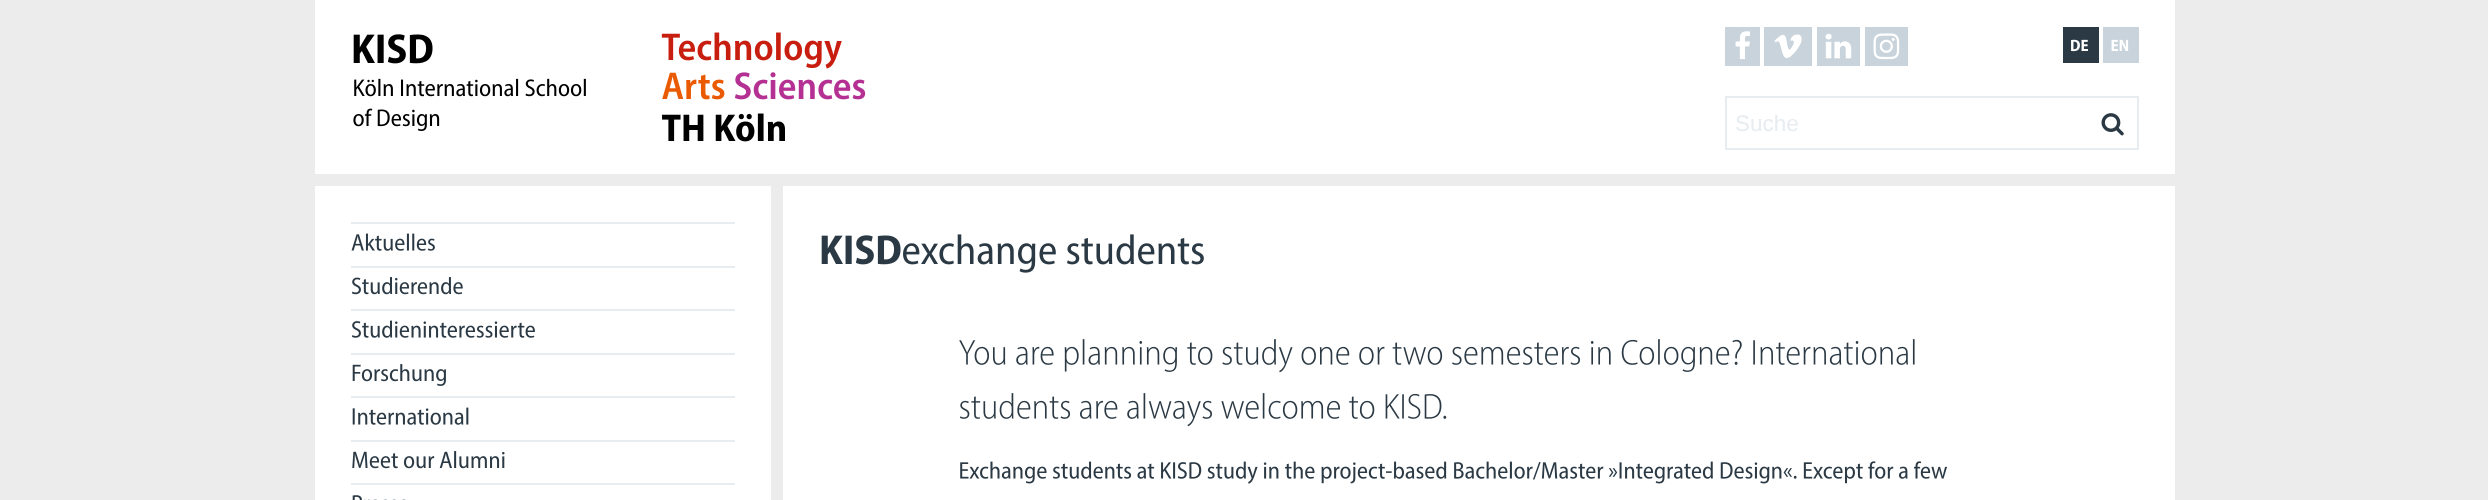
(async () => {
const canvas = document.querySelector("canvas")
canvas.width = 2488
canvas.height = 500
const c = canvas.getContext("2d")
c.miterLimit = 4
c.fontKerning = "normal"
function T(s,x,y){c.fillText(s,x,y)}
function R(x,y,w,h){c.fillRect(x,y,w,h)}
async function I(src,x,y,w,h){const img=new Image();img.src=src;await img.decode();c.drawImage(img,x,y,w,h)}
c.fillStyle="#ececec"
R(0,0,2488,500)
c.fillStyle="#fff"
R(315,0,1860,174)
await I("1.png",353,34,80,30)
await I("2.png",354,78,232,19)
await I("3.png",353,108,87,23)
await I("4.png",661,32,181,37)
await I("5.png",662,72,63,28)
await I("6.png",735,72,131,28)
await I("7.png",662,113,123,29)
c.fillStyle="#c8d3dc"
R(1725,27,35,39)
await I("8.png",1735,31,15,29)
R(1764,27,48,39)
await I("9.png",1774,34,28,24)
R(1817,27,43,39)
await I("10.png",1825,33,27,26)
R(1865,27,43,39)
await I("11.png",1873,33,27,27)
c.fillStyle="#2a3944"
R(2063,27,36,36)
await I("12.png",2071,39,17,13)
c.fillStyle="#c8d3dc"
R(2103,27,36,36)
await I("13.png",2111,39,18,12)
c.strokeStyle="#e7ecf0"
c.lineWidth=2
c.strokeRect(1726,97,412,52)
c.font="22.5px Liberation Sans"
c.fillStyle="#e7ecf0"
T("Suche",1735,131)
await I("14.png",2101,113,23,23)
c.fillStyle="#fff"
R(315,186,456,314)
c.fillStyle="#e7ecf0"
R(351,222,384,2)
await I("15.png",351,233,84,18)
R(351,266,384,2)
await I("16.png",352,277,111,18)
R(351,309,384,2)
await I("17.png",352,320,183,18)
R(351,353,384,2)
await I("18.png",352,364,94,22)
R(351,396,384,2)
await I("19.png",352,407,117,18)
R(351,440,384,2)
await I("20.png",352,451,153,18)
R(351,483,384,2)
await I("21.png",352,495,54,5)
c.fillStyle="#fff"
R(783,186,1392,314)
await I("22.png",959,339,956,34)
await I("23.png",959,393,488,34)
await I("24.png",960,461,987,23)
await I("25.png",821,235,80,30)
await I("26.png",903,234,301,39)
})()
